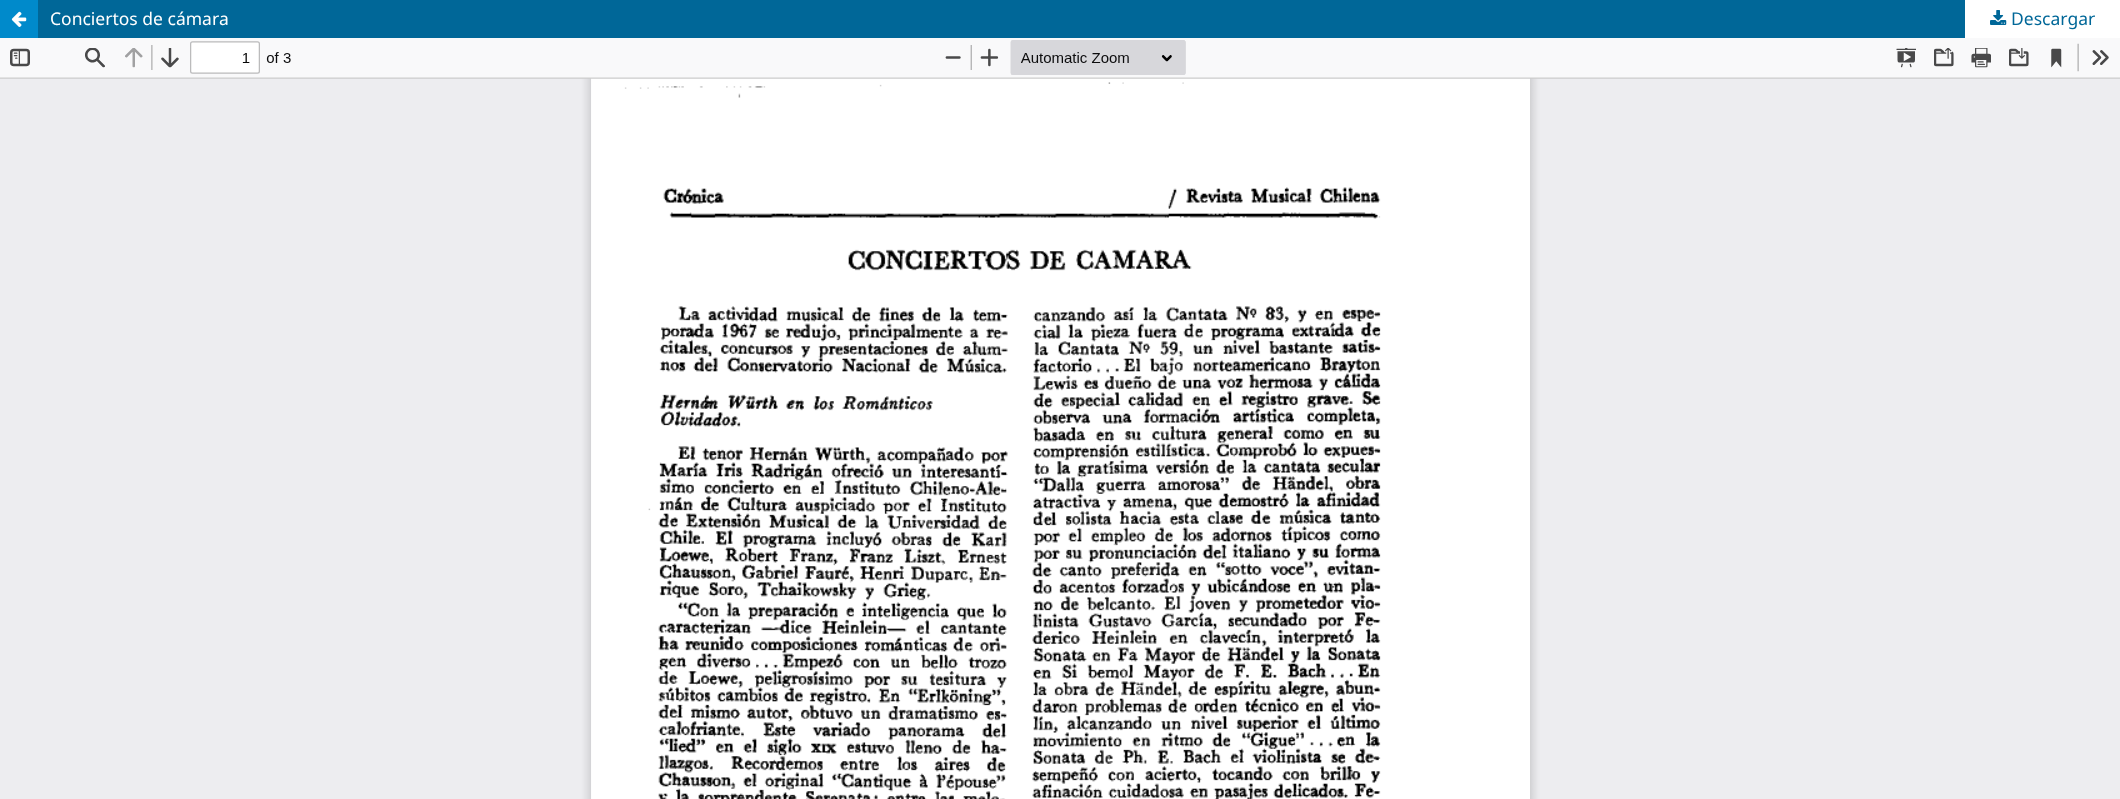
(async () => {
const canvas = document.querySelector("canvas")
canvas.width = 2120
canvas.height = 799
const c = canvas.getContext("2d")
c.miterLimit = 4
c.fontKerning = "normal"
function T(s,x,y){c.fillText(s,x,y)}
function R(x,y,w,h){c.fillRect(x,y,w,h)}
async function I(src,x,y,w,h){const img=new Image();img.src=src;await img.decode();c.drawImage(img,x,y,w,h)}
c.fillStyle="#fff"
R(0,0,2120,799)
c.fillStyle="#006798"
R(38,0,1927,38)
c.fillStyle="#008acb"
R(0,0,38,38)
await I("1.png",11,11,16,16)
c.font="17.5px Noto Sans"
c.fillStyle="#fff"
T("Conciertos de cámara",50,25)
await I("2.png",1990,10,17,15)
c.fillStyle="#006798"
T("Descargar",2011,25)
await I("3.png",0,38,2120,761)
})()
